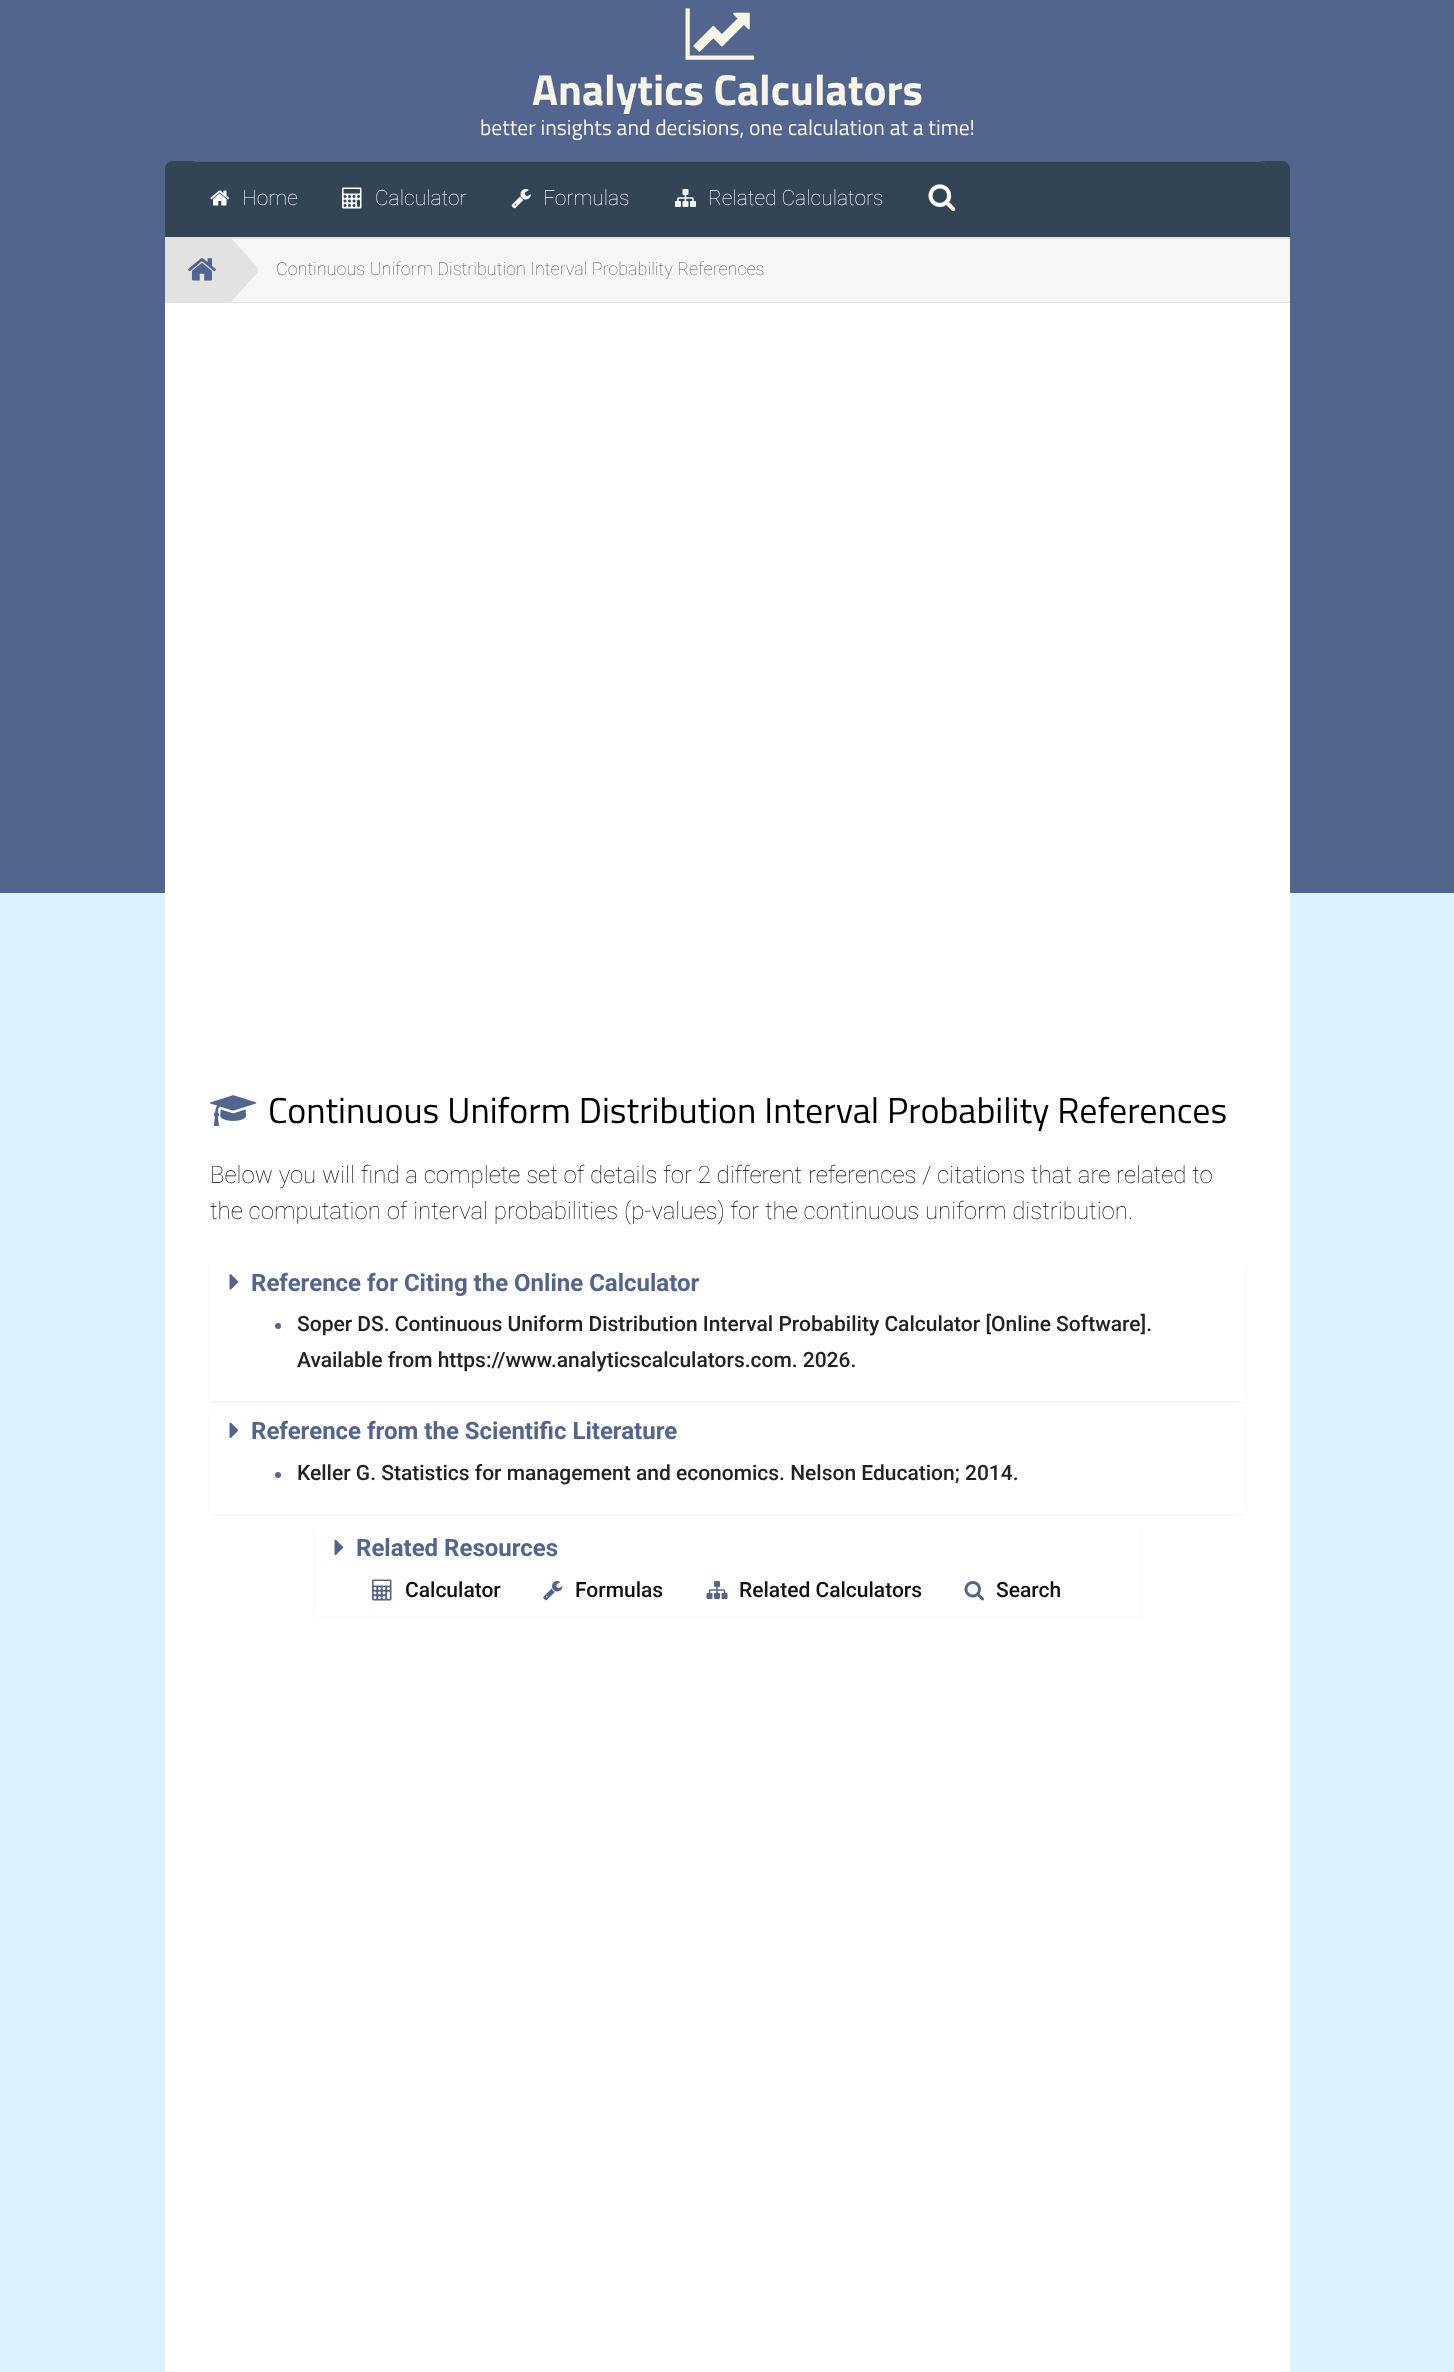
(async () => {
const canvas = document.querySelector("canvas")
canvas.width = 1454
canvas.height = 2372
const c = canvas.getContext("2d")
c.miterLimit = 4
c.fontKerning = "normal"
function T(s,x,y){c.fillText(s,x,y)}
function R(x,y,w,h){c.fillRect(x,y,w,h)}
function Q(x,y,w,h,r){c.beginPath();c.roundRect(x,y,w,h,r);c.fill()}
async function I(src,x,y,w,h){const img=new Image();img.src=src;await img.decode();c.drawImage(img,x,y,w,h)}
let path
c.fillStyle="#dcf3ff"
R(0,0,1454,2372)
c.fillStyle="#52658f"
R(0,0,1454,893)
await I("1.png",685,8,70,52)
c.font="bold 43.25px Titillium Web"
c.fillStyle="#f7f5e6"
T("Analytics Calculators",532,105)
c.font="21.6px Titillium Web"
T("better insights and decisions, one calculation at a time!",480,135)
c.fillStyle="#345"
c.beginPath()
c.roundRect(165,161,1125,76,[8,8,0,0])
c.fill()
c.fillStyle="#52606f"
path = new Path2D("M195 162h1065c4 0 8 3 8 8v-1c0-4-4-8-8-8h-1064c-4 0-8 4-8 8v1c0-5 3-8 7-8z")
c.fill(path)
await I("2.png",210,190,20,16)
c.font="100 21px Roboto"
c.fillStyle="#fff"
T("Home",242,205)
await I("3.png",342,187,20,22)
T("Calculator",375,205)
await I("4.png",511,189,20,20)
T("Formulas",543,205)
await I("5.png",675,189,21,18)
T("Related Calculators",708,205)
await I("6.png",928,184,28,28)
c.fillStyle="#f7f7f7"
R(231,239,1059,63)
c.fillStyle="#e2e2e2"
R(165,237,1125,2)
R(165,302,1125,1)
R(165,239,66,63)
await I("7.png",188,258,28,23)
path = new Path2D("M231 302v-64l27 30v4z")
c.fill(path)
c.font="100 18px Roboto"
c.fillStyle="#505050"
T("Continuous Uniform Distribution Interval Probability References",276,275)
c.fillStyle="#fff"
R(165,303,1125,2069)
await I("8.png",210,1095,47,32)
c.font="36px Titillium Web"
c.fillStyle="#000"
T("Continuous Uniform Distribution Interval Probability References",268,1123)
c.font="100 24px Roboto"
T("Below you will find a complete set of details for 2 different references / citations that are related to",210,1183)
T("the computation of interval probabilities (p-values) for the continuous uniform distribution.",210,1219)
c.fillStyle="#0000000d"
c.filter="blur(1.5px)"
c.beginPath()
c.roundRect(210,1262,1035,141,6)
c.fill()
c.filter="none"
c.fillStyle="#fff"
Q(210,1260,1035,141,6)
await I("9.png",229,1274,10,16)
c.font="bold 24px Roboto"
c.fillStyle="#52658f"
T("Reference for Citing the Online Calculator",251,1291)
c.fillStyle="#fff"
R(210,1397,1035,4)
c.fillStyle="#52658f"
c.beginPath()
c.arc(278,1326,3,0,7)
c.fill()
c.font="500 21px Roboto"
c.fillStyle="#222"
T("Soper DS. Continuous Uniform Distribution Interval Probability Calculator [Online Software].",297,1331)
T("Available from https://www.analyticscalculators.com. 2026.",297,1367)
c.fillStyle="#0000000d"
c.filter="blur(1.5px)"
c.beginPath()
c.roundRect(210,1410,1035,105,6)
c.fill()
c.filter="none"
c.fillStyle="#fff"
Q(210,1409,1035,105,6)
await I("10.png",229,1422,10,17)
c.font="bold 24px Roboto"
c.fillStyle="#52658f"
T("Reference from the Scientific Literature",251,1439)
c.fillStyle="#fff"
R(210,1510,1035,4)
c.fillStyle="#52658f"
c.beginPath()
c.arc(278,1475,3,0,7)
c.fill()
c.font="500 21px Roboto"
c.fillStyle="#222"
T("Keller G. Statistics for management and economics. Nelson Education; 2014.",297,1480)
c.fillStyle="#0000000d"
c.filter="blur(1.5px)"
c.beginPath()
c.roundRect(315,1527,825,90,6)
c.fill()
c.filter="none"
c.fillStyle="#fff"
Q(315,1526,825,90,6)
await I("10.png",334,1539,10,17)
c.font="bold 24px Roboto"
c.fillStyle="#52658f"
T("Related Resources",356,1556)
c.fillStyle="#fff"
R(315,1612,825,4)
await I("11.png",372,1579,20,22)
c.font="500 21px Roboto"
c.fillStyle="#111"
T("Calculator",405,1597)
await I("12.png",543,1581,20,20)
T("Formulas",575,1597)
await I("13.png",706,1581,22,18)
T("Related Calculators",739,1597)
await I("14.png",964,1581,20,20)
T("Search",996,1597)
})()
